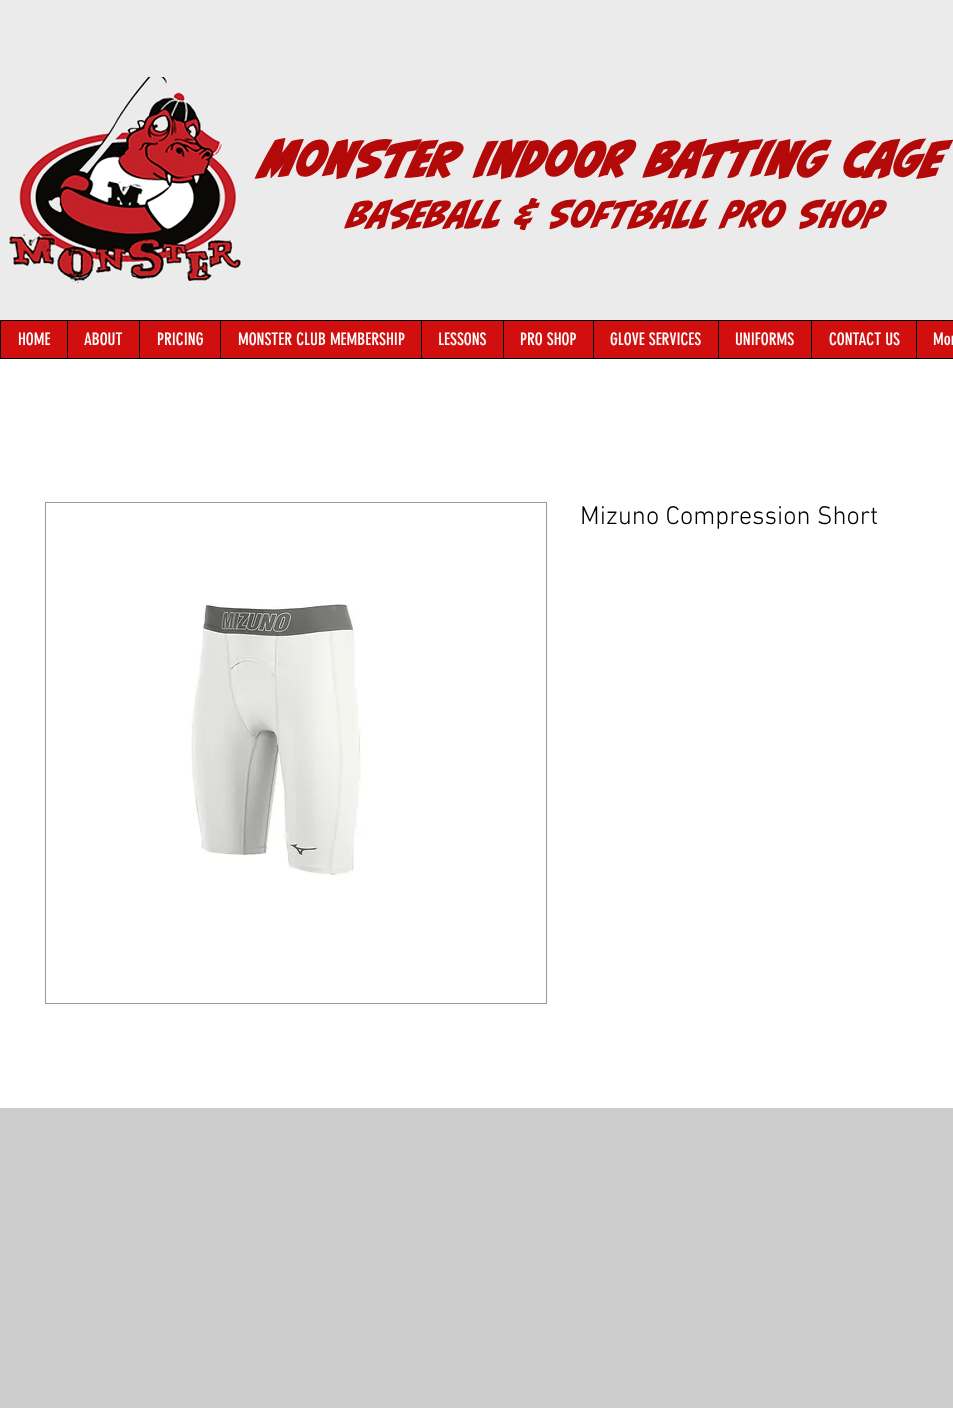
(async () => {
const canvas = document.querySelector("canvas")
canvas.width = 953
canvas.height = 1408
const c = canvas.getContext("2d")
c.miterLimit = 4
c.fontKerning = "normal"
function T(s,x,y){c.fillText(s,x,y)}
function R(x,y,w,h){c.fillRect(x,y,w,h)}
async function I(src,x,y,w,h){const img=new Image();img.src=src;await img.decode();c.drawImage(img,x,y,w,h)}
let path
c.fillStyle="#ccc"
R(0,0,953,1408)
c.fillStyle="#ebebeb"
R(0,0,953,320)
c.fillStyle="#fff"
path = new Path2D("M203 197c0 28-27 50-61 50c-34 0-61-22-61-50c0-28 27-50 61-50c34 0 61 22 61 50z")
c.fill(path)
await I("1.png",8,77,234,206)
c.font="bold 45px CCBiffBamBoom"
c.fillStyle="#b30909"
T("Monster Indoor Batting Cage",263,177)
c.font="35px CCBiffBamBoom"
T("Baseball & Softball Pro Shop",349,228)
c.fillStyle="#d10f0f"
c.beginPath()
c.rect(.5,320.5,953,38)
c.fill()
c.strokeStyle="#000"
c.stroke()
c.font="17px 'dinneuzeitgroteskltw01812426'"
c.fillStyle="#fff"
T("HOME",18,345)
c.fillStyle="#000"
R(67,321,1,37)
c.fillStyle="#fff"
T("ABOUT",84,345)
c.fillStyle="#000"
R(139,321,1,37)
c.fillStyle="#fff"
T("PRICING",157,345)
c.fillStyle="#000"
R(220,321,1,37)
c.fillStyle="#fff"
T("MONSTER CLUB MEMBERSHIP",238,345)
c.fillStyle="#000"
R(421,321,1,37)
c.fillStyle="#fff"
T("LESSONS",438,345)
c.fillStyle="#000"
R(503,321,1,37)
c.fillStyle="#fff"
T("PRO SHOP",520,345)
c.fillStyle="#000"
R(593,321,1,37)
c.fillStyle="#fff"
T("GLOVE SERVICES",610,345)
c.fillStyle="#000"
R(718,321,1,37)
c.fillStyle="#fff"
T("UNIFORMS",735,345)
c.fillStyle="#000"
R(811,321,1,37)
c.fillStyle="#fff"
T("CONTACT US",829,345)
c.fillStyle="#000"
R(916,321,1,37)
c.fillStyle="#fff"
T("Mor",933,345)
R(0,359,953,749)
c.strokeStyle="#999"
c.strokeRect(45.5,502.5,501,501)
await I("2.png",190,603,172,273)
c.font="300 26px 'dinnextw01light'"
c.fillStyle="#000"
T("Mizuno Compression Short",580,524)
})()
